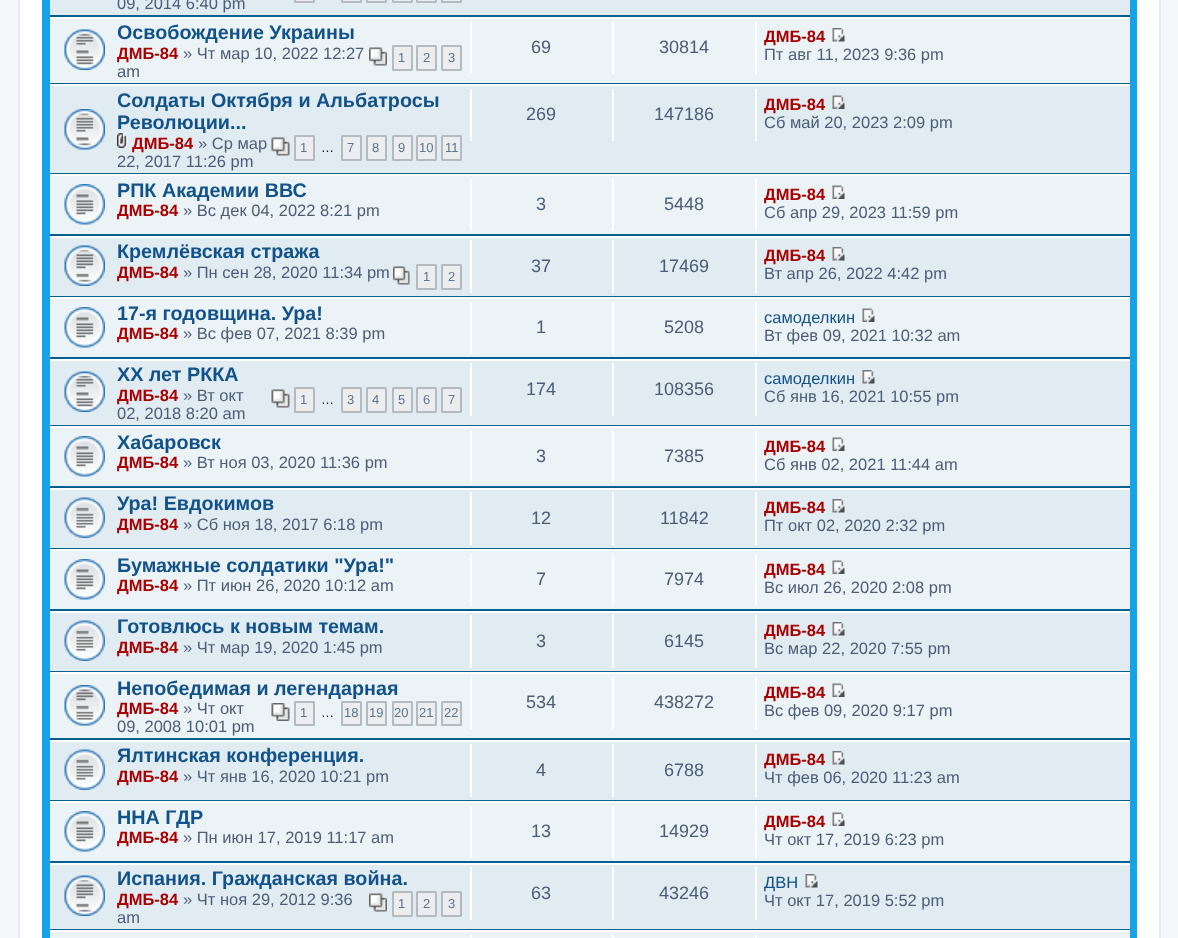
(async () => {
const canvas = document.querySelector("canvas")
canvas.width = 1178
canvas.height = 938
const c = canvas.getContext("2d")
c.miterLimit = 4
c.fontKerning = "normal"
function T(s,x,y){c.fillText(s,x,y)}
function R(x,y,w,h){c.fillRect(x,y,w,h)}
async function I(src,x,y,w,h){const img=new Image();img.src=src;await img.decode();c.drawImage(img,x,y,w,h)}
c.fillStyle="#f5f7fa"
R(0,0,1178,938)
c.fillStyle="#fff"
c.beginPath()
c.rect(19,-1,1141,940)
c.fill()
c.strokeStyle="#e6e9ed"
c.lineWidth=2
c.stroke()
c.fillStyle="#12a3eb"
R(42,0,1095,938)
c.fillStyle="#e1ebf2"
R(50,0,1080,15)
c.fillStyle="#00608f"
R(50,15,1080,2)
c.font="16.5px Liberation Sans"
c.fillStyle="#4c5d77"
T("09, 2014 6:40 pm",117,9)
c.fillStyle="#ecedee"
c.beginPath()
c.roundRect(295,-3,19,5,.5)
c.fill()
c.strokeStyle="#b4bac0"
c.stroke()
c.beginPath()
c.roundRect(342,-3,19,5,.5)
c.fill()
c.stroke()
c.beginPath()
c.roundRect(367,-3,19,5,.5)
c.fill()
c.stroke()
c.beginPath()
c.roundRect(393,-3,19,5,.5)
c.fill()
c.stroke()
c.beginPath()
c.roundRect(417,-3,19,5,.5)
c.fill()
c.stroke()
c.beginPath()
c.roundRect(442,-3,19,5,.5)
c.fill()
c.stroke()
c.fillStyle="#ecf3f7"
R(50,19,1080,64)
c.fillStyle="#fff"
R(50,17,1080,2)
c.fillStyle="#00608f"
R(50,83,1080,1)
await I("1.png",64,29,41,41)
c.font="bold 19.75px Liberation Sans"
c.fillStyle="#105289"
T("Освобождение Украины",117,39)
c.font="bold 16.5px Liberation Sans"
c.fillStyle="#a00"
T("ДМБ-84",117,59)
c.font="16.5px Liberation Sans"
c.fillStyle="#4c5d77"
T("» Чт мар 10, 2022 12:27",183,59)
T("am",117,77)
await I("2.png",369,47,18,19)
c.fillStyle="#ecedee"
c.beginPath()
c.roundRect(393,46,19,24,.5)
c.fill()
c.stroke()
c.font="13px Liberation Sans"
c.fillStyle="#5c758c"
T("1",398,62)
c.fillStyle="#ecedee"
c.beginPath()
c.roundRect(417,46,19,24,.5)
c.fill()
c.stroke()
c.fillStyle="#5c758c"
T("2",423,62)
c.fillStyle="#ecedee"
c.beginPath()
c.roundRect(442,46,19,24,.5)
c.fill()
c.stroke()
c.fillStyle="#5c758c"
T("3",448,62)
c.fillStyle="#fff"
R(470,21,2,53)
c.font="18px Liberation Sans"
c.fillStyle="#4c5d77"
T("69",531,53)
c.fillStyle="#fff"
R(612,21,2,53)
c.fillStyle="#4c5d77"
T("30814",659,53)
c.fillStyle="#fff"
R(755,21,2,53)
c.font="bold 16.5px Liberation Sans"
c.fillStyle="#a00"
T("ДМБ-84",764,42)
await I("3.png",832,28,13,14)
c.font="16.5px Liberation Sans"
c.fillStyle="#4c5d77"
T("Пт авг 11, 2023 9:36 pm",764,60)
c.fillStyle="#e1ebf2"
R(50,86,1080,87)
c.fillStyle="#fff"
R(50,84,1080,2)
c.fillStyle="#00608f"
R(50,173,1080,1)
await I("4.png",64,109,41,41)
c.font="bold 19.75px Liberation Sans"
c.fillStyle="#105289"
T("Солдаты Октября и Альбатросы",117,107)
T("Революции...",117,129)
await I("5.png",117,133,11,15)
c.font="bold 16.5px Liberation Sans"
c.fillStyle="#a00"
T("ДМБ-84",132,149)
c.font="16.5px Liberation Sans"
c.fillStyle="#4c5d77"
T("» Ср мар",198,149)
T("22, 2017 11:26 pm",117,167)
await I("6.png",271,137,19,19)
c.fillStyle="#ecedee"
c.beginPath()
c.roundRect(295,136,19,24,.5)
c.fill()
c.stroke()
c.font="13px Liberation Sans"
c.fillStyle="#5c758c"
T("1",300,152)
c.fillStyle="#000"
T("…",321,152)
c.fillStyle="#ecedee"
c.beginPath()
c.roundRect(342,136,19,24,.5)
c.fill()
c.stroke()
c.fillStyle="#5c758c"
T("7",347,152)
c.fillStyle="#ecedee"
c.beginPath()
c.roundRect(367,136,19,24,.5)
c.fill()
c.stroke()
c.fillStyle="#5c758c"
T("8",372,152)
c.fillStyle="#ecedee"
c.beginPath()
c.roundRect(393,136,19,24,.5)
c.fill()
c.stroke()
c.fillStyle="#5c758c"
T("9",398,152)
c.fillStyle="#ecedee"
c.beginPath()
c.roundRect(417,136,19,24,.5)
c.fill()
c.stroke()
c.fillStyle="#5c758c"
T("10",419,152)
c.fillStyle="#ecedee"
c.beginPath()
c.roundRect(442,136,19,24,.5)
c.fill()
c.stroke()
c.fillStyle="#5c758c"
T("11",445,152)
c.fillStyle="#fff"
R(470,89,2,52)
c.font="18px Liberation Sans"
c.fillStyle="#4c5d77"
T("269",526,120)
c.fillStyle="#fff"
R(612,89,2,52)
c.fillStyle="#4c5d77"
T("147186",654,120)
c.fillStyle="#fff"
R(755,89,2,52)
c.font="bold 16.5px Liberation Sans"
c.fillStyle="#a00"
T("ДМБ-84",764,110)
await I("7.png",832,95,13,14)
c.font="16.5px Liberation Sans"
c.fillStyle="#4c5d77"
T("Сб май 20, 2023 2:09 pm",764,128)
c.fillStyle="#ecf3f7"
R(50,176,1080,58)
c.fillStyle="#fff"
R(50,174,1080,2)
c.fillStyle="#00608f"
R(50,234,1080,2)
await I("8.png",64,184,41,41)
c.font="bold 19.75px Liberation Sans"
c.fillStyle="#105289"
T("РПК Академии ВВС",117,197)
c.font="bold 16.5px Liberation Sans"
c.fillStyle="#a00"
T("ДМБ-84",117,216)
c.font="16.5px Liberation Sans"
c.fillStyle="#4c5d77"
T("» Вс дек 04, 2022 8:21 pm",183,216)
c.fillStyle="#fff"
R(470,179,2,52)
c.font="18px Liberation Sans"
c.fillStyle="#4c5d77"
T("3",536,210)
c.fillStyle="#fff"
R(612,179,2,52)
c.fillStyle="#4c5d77"
T("5448",664,210)
c.fillStyle="#fff"
R(755,179,2,52)
c.font="bold 16.5px Liberation Sans"
c.fillStyle="#a00"
T("ДМБ-84",764,200)
await I("9.png",832,185,13,14)
c.font="16.5px Liberation Sans"
c.fillStyle="#4c5d77"
T("Сб апр 29, 2023 11:59 pm",764,218)
c.fillStyle="#e1ebf2"
R(50,238,1080,58)
c.fillStyle="#fff"
R(50,236,1080,2)
c.fillStyle="#00608f"
R(50,296,1080,1)
await I("10.png",64,245,41,41)
c.font="bold 19.75px Liberation Sans"
c.fillStyle="#105289"
T("Кремлёвская стража",117,258)
c.font="bold 16.5px Liberation Sans"
c.fillStyle="#a00"
T("ДМБ-84",117,278)
c.font="16.5px Liberation Sans"
c.fillStyle="#4c5d77"
T("» Пн сен 28, 2020 11:34 pm",183,278)
await I("11.png",393,266,17,19)
c.fillStyle="#ecedee"
c.beginPath()
c.roundRect(417,265,19,24,.5)
c.fill()
c.stroke()
c.font="13px Liberation Sans"
c.fillStyle="#5c758c"
T("1",423,281)
c.fillStyle="#ecedee"
c.beginPath()
c.roundRect(442,265,19,24,.5)
c.fill()
c.stroke()
c.fillStyle="#5c758c"
T("2",448,281)
c.fillStyle="#fff"
R(470,240,2,53)
c.font="18px Liberation Sans"
c.fillStyle="#4c5d77"
T("37",531,272)
c.fillStyle="#fff"
R(612,240,2,53)
c.fillStyle="#4c5d77"
T("17469",659,272)
c.fillStyle="#fff"
R(755,240,2,53)
c.font="bold 16.5px Liberation Sans"
c.fillStyle="#a00"
T("ДМБ-84",764,261)
await I("12.png",832,247,13,14)
c.font="16.5px Liberation Sans"
c.fillStyle="#4c5d77"
T("Вт апр 26, 2022 4:42 pm",764,279)
c.fillStyle="#ecf3f7"
R(50,299,1080,58)
c.fillStyle="#fff"
R(50,297,1080,2)
c.fillStyle="#00608f"
R(50,357,1080,2)
await I("8.png",64,307,41,41)
c.font="bold 19.75px Liberation Sans"
c.fillStyle="#105289"
T("17-я годовщина. Ура!",117,320)
c.font="bold 16.5px Liberation Sans"
c.fillStyle="#a00"
T("ДМБ-84",117,339)
c.font="16.5px Liberation Sans"
c.fillStyle="#4c5d77"
T("» Вс фев 07, 2021 8:39 pm",183,339)
c.fillStyle="#fff"
R(470,302,2,52)
c.font="18px Liberation Sans"
c.fillStyle="#4c5d77"
T("1",536,333)
c.fillStyle="#fff"
R(612,302,2,52)
c.fillStyle="#4c5d77"
T("5208",664,333)
c.fillStyle="#fff"
R(755,302,2,52)
c.font="16.5px Liberation Sans"
c.fillStyle="#105289"
T("самоделкин",764,323)
await I("9.png",862,308,13,14)
c.fillStyle="#4c5d77"
T("Вт фев 09, 2021 10:32 am",764,341)
c.fillStyle="#e1ebf2"
R(50,361,1080,64)
c.fillStyle="#fff"
R(50,359,1080,2)
c.fillStyle="#00608f"
R(50,425,1080,1)
await I("13.png",64,371,41,41)
c.font="bold 19.75px Liberation Sans"
c.fillStyle="#105289"
T("ХХ лет РККА",117,381)
c.font="bold 16.5px Liberation Sans"
c.fillStyle="#a00"
T("ДМБ-84",117,401)
c.font="16.5px Liberation Sans"
c.fillStyle="#4c5d77"
T("» Вт окт",183,401)
T("02, 2018 8:20 am",117,419)
await I("6.png",271,389,19,19)
c.fillStyle="#ecedee"
c.beginPath()
c.roundRect(295,388,19,24,.5)
c.fill()
c.stroke()
c.font="13px Liberation Sans"
c.fillStyle="#5c758c"
T("1",300,404)
c.fillStyle="#000"
T("…",321,404)
c.fillStyle="#ecedee"
c.beginPath()
c.roundRect(342,388,19,24,.5)
c.fill()
c.stroke()
c.fillStyle="#5c758c"
T("3",347,404)
c.fillStyle="#ecedee"
c.beginPath()
c.roundRect(367,388,19,24,.5)
c.fill()
c.stroke()
c.fillStyle="#5c758c"
T("4",372,404)
c.fillStyle="#ecedee"
c.beginPath()
c.roundRect(393,388,19,24,.5)
c.fill()
c.stroke()
c.fillStyle="#5c758c"
T("5",398,404)
c.fillStyle="#ecedee"
c.beginPath()
c.roundRect(417,388,19,24,.5)
c.fill()
c.stroke()
c.fillStyle="#5c758c"
T("6",423,404)
c.fillStyle="#ecedee"
c.beginPath()
c.roundRect(442,388,19,24,.5)
c.fill()
c.stroke()
c.fillStyle="#5c758c"
T("7",448,404)
c.fillStyle="#fff"
R(470,363,2,53)
c.font="18px Liberation Sans"
c.fillStyle="#4c5d77"
T("174",526,395)
c.fillStyle="#fff"
R(612,363,2,53)
c.fillStyle="#4c5d77"
T("108356",654,395)
c.fillStyle="#fff"
R(755,363,2,53)
c.font="16.5px Liberation Sans"
c.fillStyle="#105289"
T("самоделкин",764,384)
await I("12.png",862,370,13,14)
c.fillStyle="#4c5d77"
T("Сб янв 16, 2021 10:55 pm",764,402)
c.fillStyle="#ecf3f7"
R(50,428,1080,58)
c.fillStyle="#fff"
R(50,426,1080,2)
c.fillStyle="#00608f"
R(50,486,1080,2)
await I("8.png",64,436,41,41)
c.font="bold 19.75px Liberation Sans"
c.fillStyle="#105289"
T("Хабаровск",117,449)
c.font="bold 16.5px Liberation Sans"
c.fillStyle="#a00"
T("ДМБ-84",117,468)
c.font="16.5px Liberation Sans"
c.fillStyle="#4c5d77"
T("» Вт ноя 03, 2020 11:36 pm",183,468)
c.fillStyle="#fff"
R(470,431,2,52)
c.font="18px Liberation Sans"
c.fillStyle="#4c5d77"
T("3",536,462)
c.fillStyle="#fff"
R(612,431,2,52)
c.fillStyle="#4c5d77"
T("7385",664,462)
c.fillStyle="#fff"
R(755,431,2,52)
c.font="bold 16.5px Liberation Sans"
c.fillStyle="#a00"
T("ДМБ-84",764,452)
await I("9.png",832,437,13,14)
c.font="16.5px Liberation Sans"
c.fillStyle="#4c5d77"
T("Сб янв 02, 2021 11:44 am",764,470)
c.fillStyle="#e1ebf2"
R(50,490,1080,58)
c.fillStyle="#fff"
R(50,488,1080,2)
c.fillStyle="#00608f"
R(50,548,1080,1)
await I("14.png",64,497,41,41)
c.font="bold 19.75px Liberation Sans"
c.fillStyle="#105289"
T("Ура! Евдокимов",117,510)
c.font="bold 16.5px Liberation Sans"
c.fillStyle="#a00"
T("ДМБ-84",117,530)
c.font="16.5px Liberation Sans"
c.fillStyle="#4c5d77"
T("» Сб ноя 18, 2017 6:18 pm",183,530)
c.fillStyle="#fff"
R(470,492,2,53)
c.font="18px Liberation Sans"
c.fillStyle="#4c5d77"
T("12",531,524)
c.fillStyle="#fff"
R(612,492,2,53)
c.fillStyle="#4c5d77"
T("11842",660,524)
c.fillStyle="#fff"
R(755,492,2,53)
c.font="bold 16.5px Liberation Sans"
c.fillStyle="#a00"
T("ДМБ-84",764,513)
await I("12.png",832,499,13,14)
c.font="16.5px Liberation Sans"
c.fillStyle="#4c5d77"
T("Пт окт 02, 2020 2:32 pm",764,531)
c.fillStyle="#ecf3f7"
R(50,551,1080,58)
c.fillStyle="#fff"
R(50,549,1080,2)
c.fillStyle="#00608f"
R(50,609,1080,2)
await I("8.png",64,559,41,41)
c.font="bold 19.75px Liberation Sans"
c.fillStyle="#105289"
T("Бумажные солдатики \"Ура!\"",117,572)
c.font="bold 16.5px Liberation Sans"
c.fillStyle="#a00"
T("ДМБ-84",117,591)
c.font="16.5px Liberation Sans"
c.fillStyle="#4c5d77"
T("» Пт июн 26, 2020 10:12 am",183,591)
c.fillStyle="#fff"
R(470,554,2,52)
c.font="18px Liberation Sans"
c.fillStyle="#4c5d77"
T("7",536,585)
c.fillStyle="#fff"
R(612,554,2,52)
c.fillStyle="#4c5d77"
T("7974",664,585)
c.fillStyle="#fff"
R(755,554,2,52)
c.font="bold 16.5px Liberation Sans"
c.fillStyle="#a00"
T("ДМБ-84",764,575)
await I("9.png",832,560,13,14)
c.font="16.5px Liberation Sans"
c.fillStyle="#4c5d77"
T("Вс июл 26, 2020 2:08 pm",764,593)
c.fillStyle="#e1ebf2"
R(50,613,1080,58)
c.fillStyle="#fff"
R(50,611,1080,2)
c.fillStyle="#00608f"
R(50,671,1080,1)
await I("14.png",64,620,41,41)
c.font="bold 19.75px Liberation Sans"
c.fillStyle="#105289"
T("Готовлюсь к новым темам.",117,633)
c.font="bold 16.5px Liberation Sans"
c.fillStyle="#a00"
T("ДМБ-84",117,653)
c.font="16.5px Liberation Sans"
c.fillStyle="#4c5d77"
T("» Чт мар 19, 2020 1:45 pm",183,653)
c.fillStyle="#fff"
R(470,615,2,53)
c.font="18px Liberation Sans"
c.fillStyle="#4c5d77"
T("3",536,647)
c.fillStyle="#fff"
R(612,615,2,53)
c.fillStyle="#4c5d77"
T("6145",664,647)
c.fillStyle="#fff"
R(755,615,2,53)
c.font="bold 16.5px Liberation Sans"
c.fillStyle="#a00"
T("ДМБ-84",764,636)
await I("12.png",832,622,13,14)
c.font="16.5px Liberation Sans"
c.fillStyle="#4c5d77"
T("Вс мар 22, 2020 7:55 pm",764,654)
c.fillStyle="#ecf3f7"
R(50,674,1080,64)
c.fillStyle="#fff"
R(50,672,1080,2)
c.fillStyle="#00608f"
R(50,738,1080,2)
await I("15.png",64,685,41,41)
c.font="bold 19.75px Liberation Sans"
c.fillStyle="#105289"
T("Непобедимая и легендарная",117,695)
c.font="bold 16.5px Liberation Sans"
c.fillStyle="#a00"
T("ДМБ-84",117,714)
c.font="16.5px Liberation Sans"
c.fillStyle="#4c5d77"
T("» Чт окт",183,714)
T("09, 2008 10:01 pm",117,732)
await I("16.png",271,703,19,18)
c.fillStyle="#ecedee"
c.beginPath()
c.roundRect(295,702,19,23,.5)
c.fill()
c.stroke()
c.font="13px Liberation Sans"
c.fillStyle="#5c758c"
T("1",300,717)
c.fillStyle="#000"
T("…",321,717)
c.fillStyle="#ecedee"
c.beginPath()
c.roundRect(342,702,19,23,.5)
c.fill()
c.stroke()
c.fillStyle="#5c758c"
T("18",344,717)
c.fillStyle="#ecedee"
c.beginPath()
c.roundRect(367,702,19,23,.5)
c.fill()
c.stroke()
c.fillStyle="#5c758c"
T("19",369,717)
c.fillStyle="#ecedee"
c.beginPath()
c.roundRect(393,702,19,23,.5)
c.fill()
c.stroke()
c.fillStyle="#5c758c"
T("20",394,717)
c.fillStyle="#ecedee"
c.beginPath()
c.roundRect(417,702,19,23,.5)
c.fill()
c.stroke()
c.fillStyle="#5c758c"
T("21",419,717)
c.fillStyle="#ecedee"
c.beginPath()
c.roundRect(442,702,19,23,.5)
c.fill()
c.stroke()
c.fillStyle="#5c758c"
T("22",444,717)
c.fillStyle="#fff"
R(470,677,2,52)
c.font="18px Liberation Sans"
c.fillStyle="#4c5d77"
T("534",526,708)
c.fillStyle="#fff"
R(612,677,2,52)
c.fillStyle="#4c5d77"
T("438272",654,708)
c.fillStyle="#fff"
R(755,677,2,52)
c.font="bold 16.5px Liberation Sans"
c.fillStyle="#a00"
T("ДМБ-84",764,698)
await I("9.png",832,683,13,14)
c.font="16.5px Liberation Sans"
c.fillStyle="#4c5d77"
T("Вс фев 09, 2020 9:17 pm",764,716)
c.fillStyle="#e1ebf2"
R(50,742,1080,58)
c.fillStyle="#fff"
R(50,740,1080,2)
c.fillStyle="#00608f"
R(50,800,1080,1)
await I("14.png",64,749,41,41)
c.font="bold 19.75px Liberation Sans"
c.fillStyle="#105289"
T("Ялтинская конференция.",117,762)
c.font="bold 16.5px Liberation Sans"
c.fillStyle="#a00"
T("ДМБ-84",117,782)
c.font="16.5px Liberation Sans"
c.fillStyle="#4c5d77"
T("» Чт янв 16, 2020 10:21 pm",183,782)
c.fillStyle="#fff"
R(470,744,2,53)
c.font="18px Liberation Sans"
c.fillStyle="#4c5d77"
T("4",536,776)
c.fillStyle="#fff"
R(612,744,2,53)
c.fillStyle="#4c5d77"
T("6788",664,776)
c.fillStyle="#fff"
R(755,744,2,53)
c.font="bold 16.5px Liberation Sans"
c.fillStyle="#a00"
T("ДМБ-84",764,765)
await I("12.png",832,751,13,14)
c.font="16.5px Liberation Sans"
c.fillStyle="#4c5d77"
T("Чт фев 06, 2020 11:23 am",764,783)
c.fillStyle="#ecf3f7"
R(50,803,1080,58)
c.fillStyle="#fff"
R(50,801,1080,2)
c.fillStyle="#00608f"
R(50,861,1080,2)
await I("8.png",64,811,41,41)
c.font="bold 19.75px Liberation Sans"
c.fillStyle="#105289"
T("ННА ГДР",117,824)
c.font="bold 16.5px Liberation Sans"
c.fillStyle="#a00"
T("ДМБ-84",117,843)
c.font="16.5px Liberation Sans"
c.fillStyle="#4c5d77"
T("» Пн июн 17, 2019 11:17 am",183,843)
c.fillStyle="#fff"
R(470,806,2,52)
c.font="18px Liberation Sans"
c.fillStyle="#4c5d77"
T("13",531,837)
c.fillStyle="#fff"
R(612,806,2,52)
c.fillStyle="#4c5d77"
T("14929",659,837)
c.fillStyle="#fff"
R(755,806,2,52)
c.font="bold 16.5px Liberation Sans"
c.fillStyle="#a00"
T("ДМБ-84",764,827)
await I("9.png",832,812,13,14)
c.font="16.5px Liberation Sans"
c.fillStyle="#4c5d77"
T("Чт окт 17, 2019 6:23 pm",764,845)
c.fillStyle="#e1ebf2"
R(50,865,1080,64)
c.fillStyle="#fff"
R(50,863,1080,2)
c.fillStyle="#00608f"
R(50,929,1080,1)
await I("10.png",64,875,41,41)
c.font="bold 19.75px Liberation Sans"
c.fillStyle="#105289"
T("Испания. Гражданская война.",117,885)
c.font="bold 16.5px Liberation Sans"
c.fillStyle="#a00"
T("ДМБ-84",117,905)
c.font="16.5px Liberation Sans"
c.fillStyle="#4c5d77"
T("» Чт ноя 29, 2012 9:36",183,905)
T("am",117,923)
await I("17.png",369,893,18,19)
c.fillStyle="#ecedee"
c.beginPath()
c.roundRect(393,892,19,24,.5)
c.fill()
c.stroke()
c.font="13px Liberation Sans"
c.fillStyle="#5c758c"
T("1",398,908)
c.fillStyle="#ecedee"
c.beginPath()
c.roundRect(417,892,19,24,.5)
c.fill()
c.stroke()
c.fillStyle="#5c758c"
T("2",423,908)
c.fillStyle="#ecedee"
c.beginPath()
c.roundRect(442,892,19,24,.5)
c.fill()
c.stroke()
c.fillStyle="#5c758c"
T("3",448,908)
c.fillStyle="#fff"
R(470,867,2,53)
c.font="18px Liberation Sans"
c.fillStyle="#4c5d77"
T("63",531,899)
c.fillStyle="#fff"
R(612,867,2,53)
c.fillStyle="#4c5d77"
T("43246",659,899)
c.fillStyle="#fff"
R(755,867,2,53)
c.font="16.5px Liberation Sans"
c.fillStyle="#105289"
T("ДВН",764,888)
await I("12.png",805,874,13,14)
c.fillStyle="#4c5d77"
T("Чт окт 17, 2019 5:52 pm",764,906)
c.fillStyle="#ecf3f7"
R(50,932,1080,6)
c.fillStyle="#fff"
R(50,930,1080,2)
R(470,935,2,3)
R(612,935,2,3)
R(755,935,2,3)
})()
